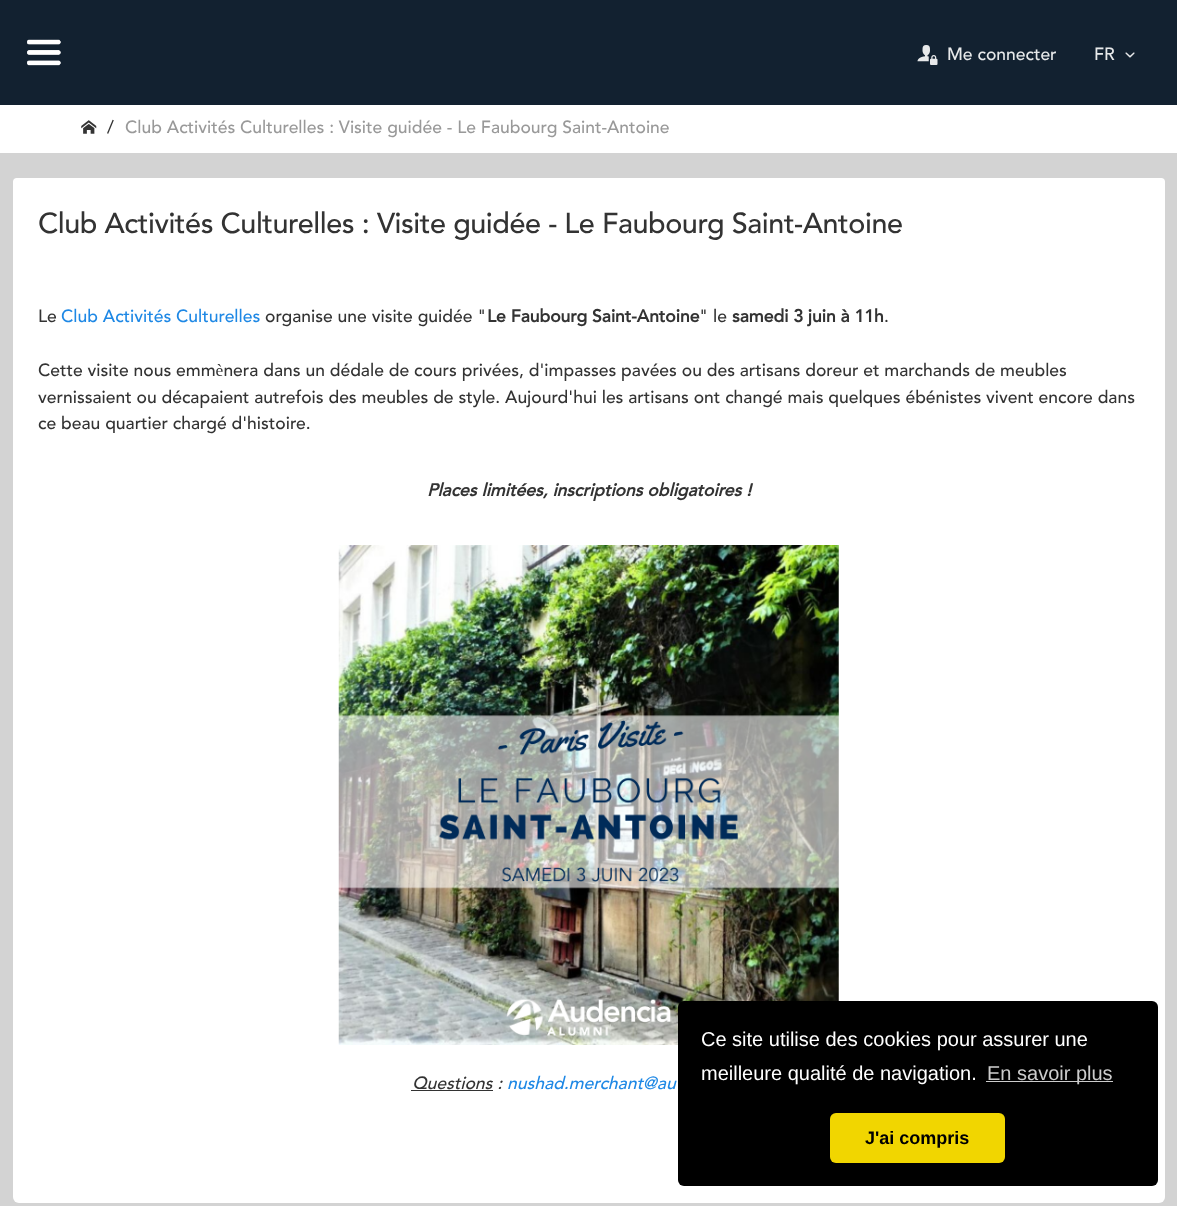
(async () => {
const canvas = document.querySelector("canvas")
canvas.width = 1177
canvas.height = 1206
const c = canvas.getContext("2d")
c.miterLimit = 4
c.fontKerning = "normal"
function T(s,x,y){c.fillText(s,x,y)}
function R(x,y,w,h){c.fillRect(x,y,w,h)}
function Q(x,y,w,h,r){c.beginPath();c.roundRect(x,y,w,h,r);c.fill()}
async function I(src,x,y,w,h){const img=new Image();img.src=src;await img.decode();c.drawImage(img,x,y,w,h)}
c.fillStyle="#d3d3d3"
R(0,0,1177,1206)
c.fillStyle="#122130"
R(0,0,1177,105)
await I("1.png",27,39,34,27)
await I("2.png",917,45,21,20)
c.font="500 17.5px Avenir"
c.fillStyle="#e7e9ea"
T("Me connecter",947,60)
T("FR",1094,60)
await I("3.png",1125,52,10,6)
c.fillStyle="#fff"
R(0,105,1177,48)
await I("4.png",81,120,16,14)
c.fillStyle="#333"
T("/",107,133)
c.fillStyle="#999"
T("Club Activités Culturelles : Visite guidée - Le Faubourg Saint-Antoine",125,133)
c.fillStyle="#fff"
Q(13,178,1152,1025,6)
c.beginPath()
c.roundRect(13,178,1152,100,[4,4,0,0])
c.fill()
c.letterSpacing="-0.43px"
c.font="500 28.75px Avenir"
c.fillStyle="#333"
T("Club Activités Culturelles : Visite guidée - Le Faubourg Saint-Antoine",38,233)
c.letterSpacing="0px"
c.font="500 17.5px Avenir"
T("Le",38,322)
c.fillStyle="#1e88e5"
T("Club Activités Culturelles",61,322)
c.fillStyle="#333"
T("organise une visite guidée \"",265,322)
c.font="bold 17.5px Avenir"
T("Le Faubourg Saint-Antoine",487,322)
c.font="500 17.5px Avenir"
T("\" le",699,322)
c.font="bold 17.5px Avenir"
T("samedi 3 juin à 11h",732,322)
c.font="500 17.5px Avenir"
T(".",884,322)
T("Cette visite nous emmènera dans un dédale de cours privées, d'impasses pavées ou des artisans doreur et marchands de meubles",38,376)
T("vernissaient ou décapaient autrefois des meubles de style. Aujourd'hui les artisans ont changé mais quelques ébénistes vivent encore dans",38,403)
T("ce beau quartier chargé d'histoire.",38,429)
c.font="italic bold 17.5px Avenir"
T("Places limitées, inscriptions obligatoires !",427,496)
await I("5.png",338,545,501,500)
c.font="italic 500 17.5px Avenir"
T("Questions :",412,1089)
R(411,1090,82,1)
c.fillStyle="#1e88e5"
T("nushad.merchant@au",507,1089)
c.fillStyle="#000"
Q(678,1001,480,185,6)
c.font="20px Liberation Sans"
c.fillStyle="#fff"
T("Ce site utilise des cookies pour assurer une",701,1046)
T("meilleure qualité de navigation.",701,1080)
c.fillStyle="#ccc"
R(986,1081,127,1)
T("En savoir plus",987,1080)
c.fillStyle="#f1d600"
Q(830,1113,175,50,6)
c.font="bold 18px Liberation Sans"
c.fillStyle="#000"
T("J'ai compris",865,1144)
})()
